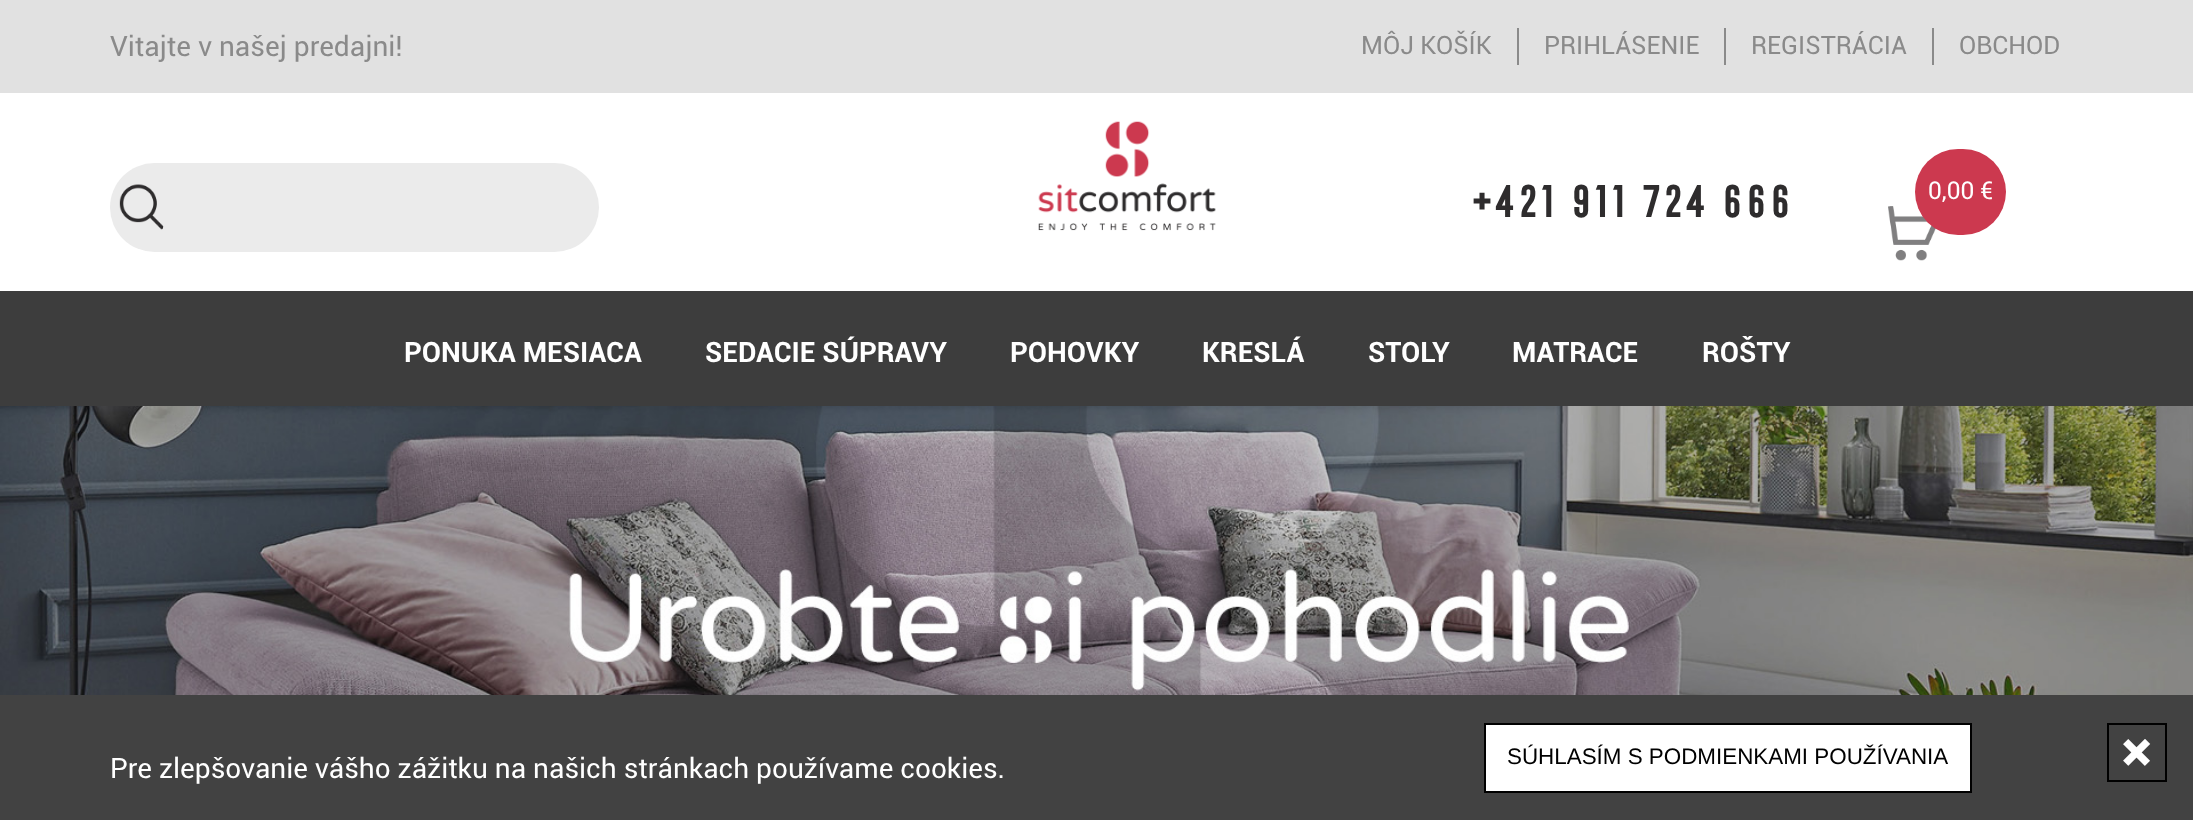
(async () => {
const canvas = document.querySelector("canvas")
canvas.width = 2193
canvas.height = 820
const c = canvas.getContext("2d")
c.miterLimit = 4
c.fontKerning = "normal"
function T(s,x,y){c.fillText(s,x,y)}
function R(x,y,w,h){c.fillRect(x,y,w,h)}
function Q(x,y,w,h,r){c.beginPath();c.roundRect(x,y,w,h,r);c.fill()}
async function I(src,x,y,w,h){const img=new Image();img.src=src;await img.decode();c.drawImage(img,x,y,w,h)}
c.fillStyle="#fff"
R(0,0,2193,820)
c.fillStyle="#e1e1e1"
R(0,0,2193,93)
c.font="28px Roboto"
c.fillStyle="#8a8a8a"
T("Vitajte v našej predajni!",110,56)
R(1517,28,2,37)
c.font="25.25px Roboto"
T("MÔJ KOŠÍK",1361,54)
R(1724,28,2,37)
T("PRIHLÁSENIE",1544,54)
R(1932,28,2,37)
T("REGISTRÁCIA",1751,54)
T("OBCHOD",1959,54)
c.fillStyle="#ebebeb"
Q(110,163,489,89,44.5)
await I("1.png",119,184,45,46)
await I("2.png",1038,121,178,110)
c.font="bold 42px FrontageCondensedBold"
c.fillStyle="#2e2c2d"
T("+421 911 724 666",1469,217)
await I("3.png",1888,206,48,55)
c.fillStyle="#cc394f"
Q(1915,149,91,86,43)
c.font="24.5px Roboto"
c.fillStyle="#fff"
T("0,00 €",1928,199)
c.fillStyle="#3d3d3d"
R(0,291,2193,115)
c.font="bold 28px Roboto"
c.fillStyle="#fff"
T("PONUKA MESIACA",404,362)
T("SEDACIE SÚPRAVY",705,362)
T("POHOVKY",1010,362)
T("KRESLÁ",1202,362)
T("STOLY",1368,362)
T("MATRACE",1512,362)
T("ROŠTY",1702,362)
await I("4.png",0,406,2193,289)
c.fillStyle="#424242"
R(0,695,2193,125)
c.font="28px Roboto"
c.fillStyle="#fff"
T("Pre zlepšovanie vášho zážitku na našich stránkach používame cookies.",110,778)
c.beginPath()
c.rect(1485,724,486,68)
c.fill()
c.strokeStyle="#000"
c.lineWidth=2
c.stroke()
c.font="22.4px Liberation Sans"
c.fillStyle="#000"
T("SÚHLASÍM S PODMIENKAMI POUŽÍVANIA",1507,764)
c.strokeRect(2108,724,58,57)
await I("5.png",2123,739,28,27)
})()
